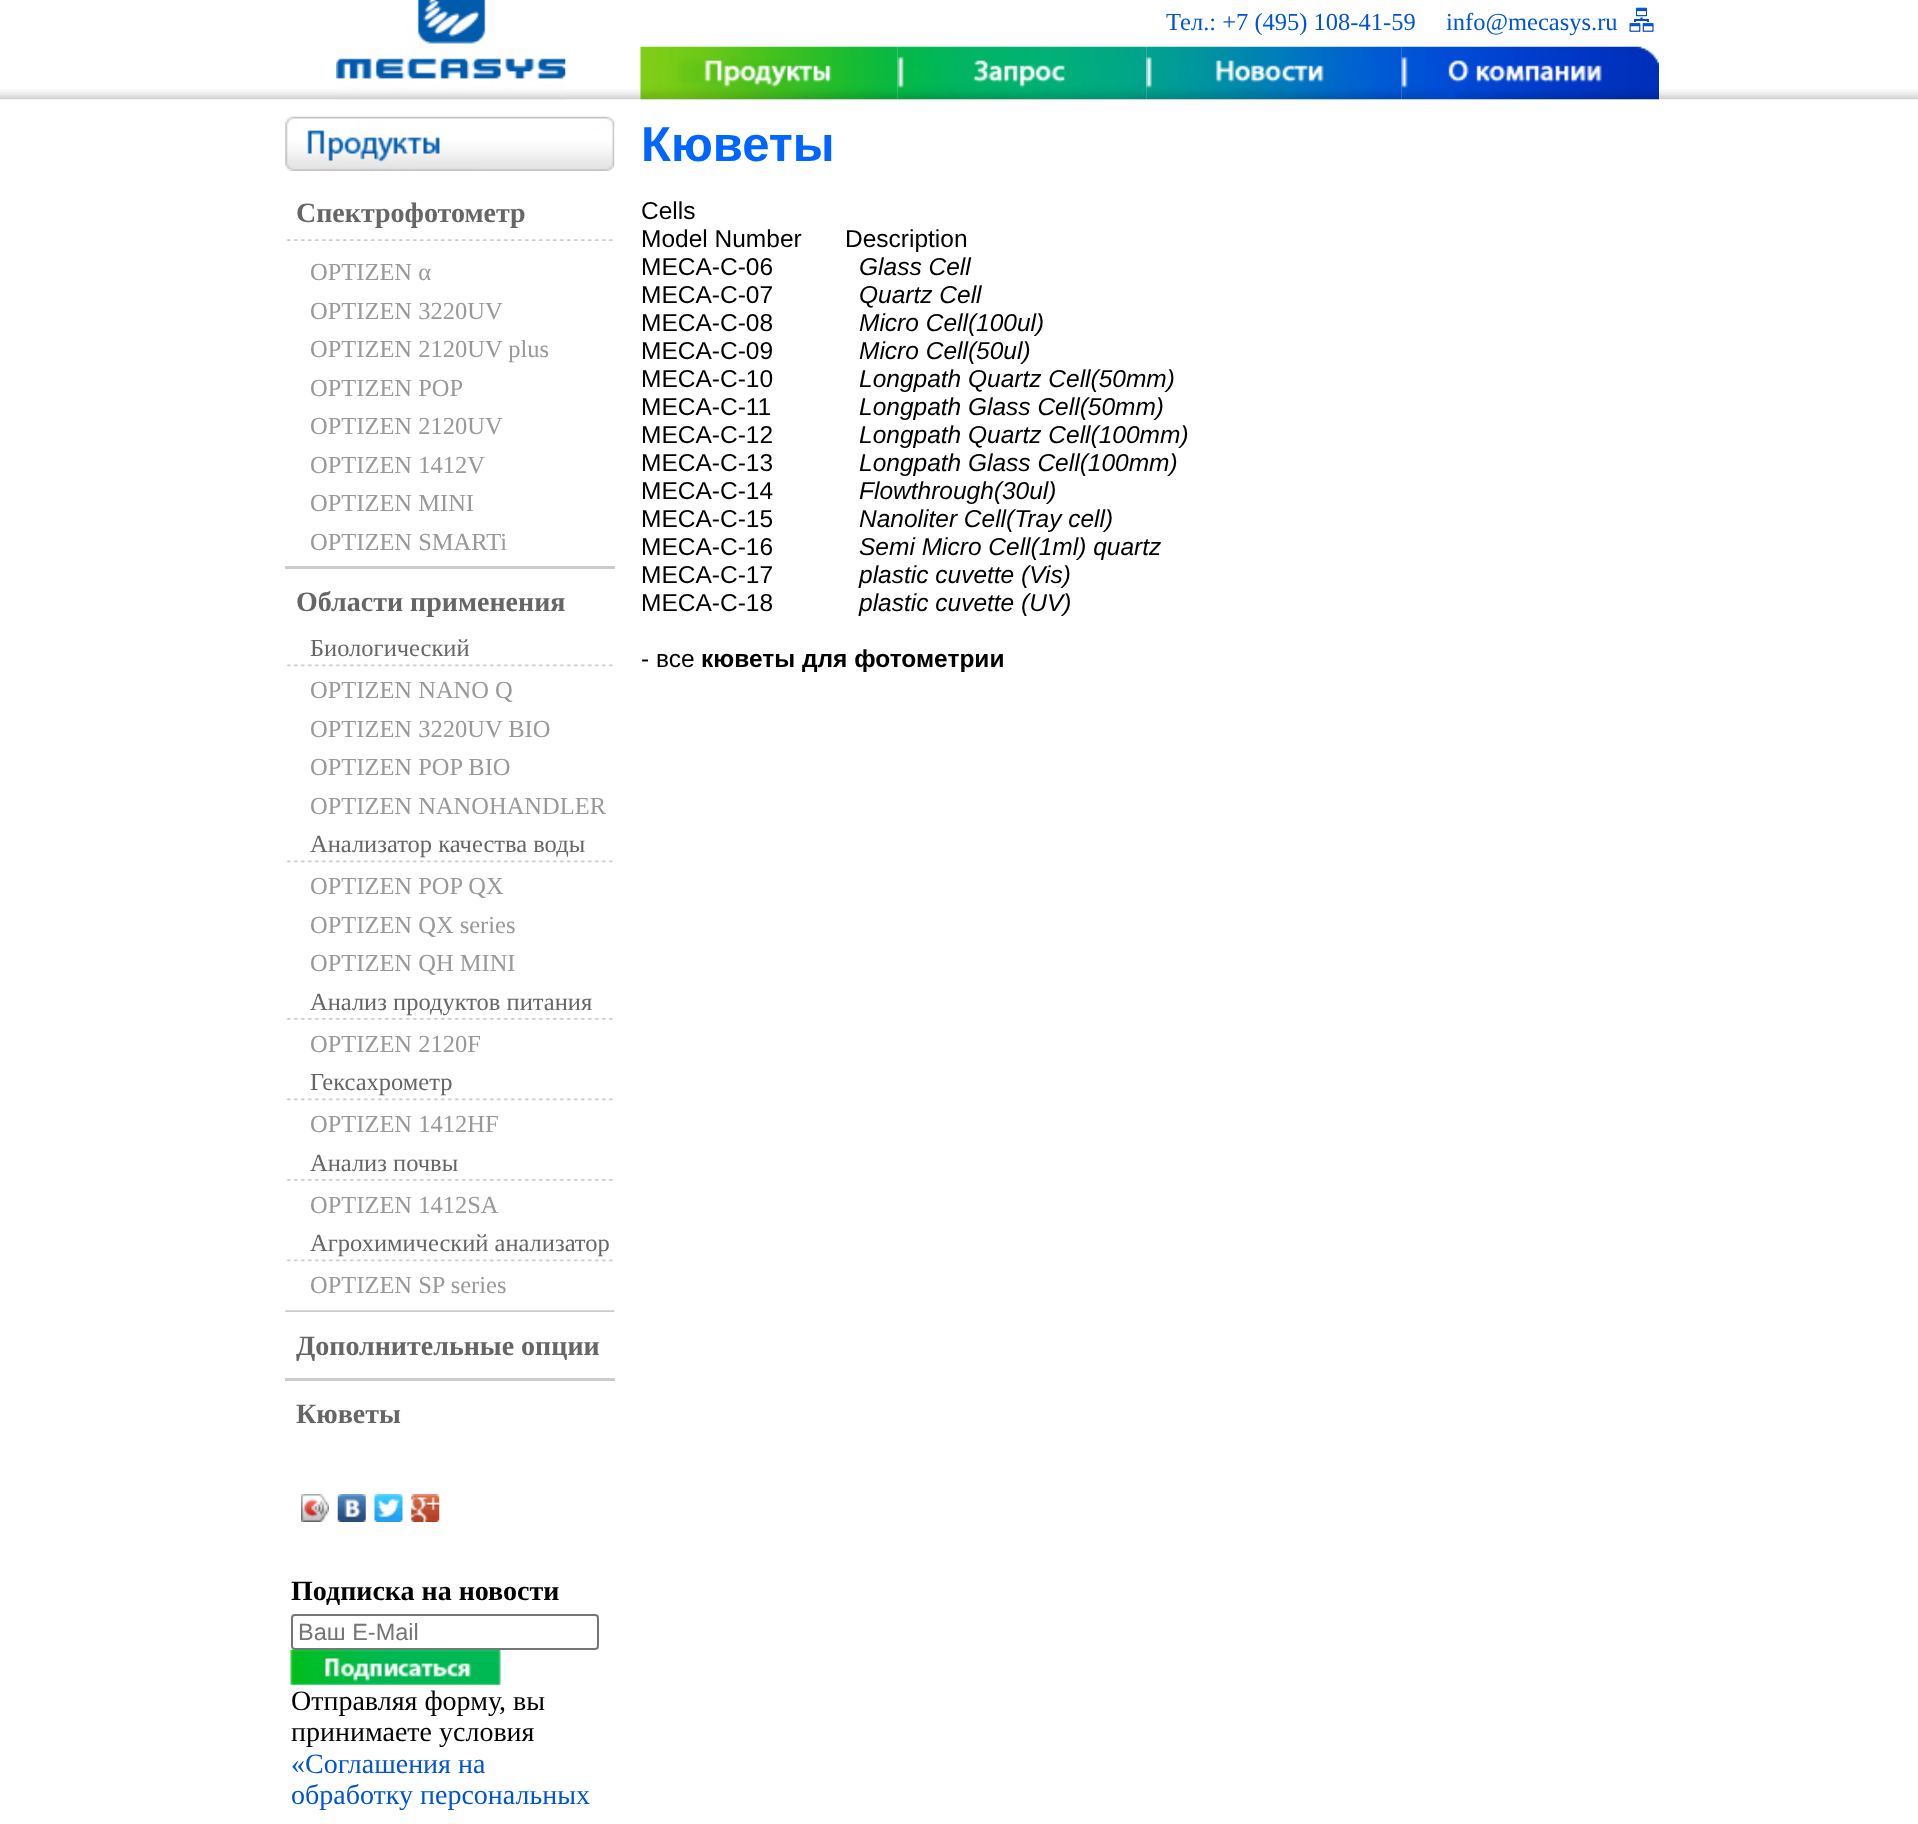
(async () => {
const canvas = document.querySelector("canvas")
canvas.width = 1918
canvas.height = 1824
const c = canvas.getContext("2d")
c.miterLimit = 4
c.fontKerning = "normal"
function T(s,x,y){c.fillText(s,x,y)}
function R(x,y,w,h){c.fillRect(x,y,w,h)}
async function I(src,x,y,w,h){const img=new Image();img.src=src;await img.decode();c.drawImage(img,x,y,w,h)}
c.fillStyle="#fff"
R(0,0,1918,1824)
await I("1.png",0,89,1918,11)
await I("2.png",336,0,230,100)
c.font="24.5px Liberation Serif"
c.fillStyle="#0254d5"
T("Тел.: +7 (495) 108-41-59",1166,30)
T("info@mecasys.ru",1446,30)
await I("3.png",1629,7,25,25)
await I("4.png",640,46,258,54)
await I("5.png",897,46,250,54)
await I("6.png",1146,46,256,54)
await I("7.png",1401,46,258,54)
await I("8.png",285,116,330,55)
c.font="bold 28px Liberation Serif"
c.fillStyle="#666"
T("Спектрофотометр",296,222)
await I("9.png",286,239,327,2)
c.font="24.5px Liberation Serif"
c.fillStyle="#999"
T("OPTIZEN α",310,280)
T("OPTIZEN 3220UV",310,319)
T("OPTIZEN 2120UV plus",310,357)
T("OPTIZEN POP",310,396)
T("OPTIZEN 2120UV",310,434)
T("OPTIZEN 1412V",310,473)
T("OPTIZEN MINI",310,511)
T("OPTIZEN SMARTi",310,550)
c.fillStyle="#ccc"
R(285,566,330,3)
c.font="bold 28px Liberation Serif"
c.fillStyle="#666"
T("Области применения",296,611)
c.font="24.5px Liberation Serif"
T("Биологический",310,656)
await I("10.png",286,664,327,3)
c.fillStyle="#999"
T("OPTIZEN NANO Q",310,698)
T("OPTIZEN 3220UV BIO",310,737)
T("OPTIZEN POP BIO",310,775)
T("OPTIZEN NANOHANDLER",310,814)
c.fillStyle="#666"
T("Анализатор качества воды",310,852)
await I("10.png",286,860,327,3)
c.fillStyle="#999"
T("OPTIZEN POP QX",310,894)
T("OPTIZEN QX series",310,933)
T("OPTIZEN QH MINI",310,971)
c.fillStyle="#666"
T("Анализ продуктов питания",310,1010)
await I("11.png",286,1018,327,2)
c.fillStyle="#999"
T("OPTIZEN 2120F",310,1052)
c.fillStyle="#666"
T("Гексахрометр",310,1090)
await I("10.png",286,1098,327,3)
c.fillStyle="#999"
T("OPTIZEN 1412HF",310,1132)
c.fillStyle="#666"
T("Анализ почвы",310,1171)
await I("11.png",286,1179,327,2)
c.fillStyle="#999"
T("OPTIZEN 1412SA",310,1213)
c.fillStyle="#666"
T("Агрохимический анализатор",310,1251)
await I("10.png",286,1259,327,3)
c.fillStyle="#999"
T("OPTIZEN SP series",310,1293)
await I("12.png",285,1310,330,2)
c.font="bold 28px Liberation Serif"
c.fillStyle="#666"
T("Дополнительные опции",296,1355)
c.fillStyle="#ccc"
R(285,1378,330,3)
c.fillStyle="#666"
T("Кюветы",296,1423)
await I("13.png",301,1494,28,28)
await I("14.png",301,1494,28,28)
await I("15.png",337,1494,29,28)
await I("16.png",374,1494,29,28)
await I("17.png",411,1494,29,28)
c.fillStyle="#000"
T("Подписка на новости",291,1600)
c.beginPath()
c.roundRect(292,1615,306,34,3)
c.strokeStyle="#767676"
c.lineWidth=2
c.stroke()
c.font="23.5px Liberation Sans"
c.fillStyle="#757575"
T("Ваш E-Mail",298,1640)
await I("18.png",290,1649,211,36)
c.font="28px Liberation Serif"
c.fillStyle="#000"
T("Отправляя форму, вы",291,1710)
T("принимаете условия",291,1741)
c.fillStyle="#0254d5"
T("«Соглашения на",291,1773)
T("обработку персональных",291,1804)
c.font="bold 49px Liberation Sans"
c.fillStyle="#06f"
T("Кюветы",641,161)
c.font="24.5px Liberation Sans"
c.fillStyle="#000"
T("Cells",641,219)
T("Model Number",641,247)
T("Description",845,247)
T("MECA-C-06",641,275)
c.font="italic 24.5px Liberation Sans"
T("Glass Cell",859,275)
c.font="24.5px Liberation Sans"
T("MECA-C-07",641,303)
c.font="italic 24.5px Liberation Sans"
T("Quartz Cell",859,303)
c.font="24.5px Liberation Sans"
T("MECA-C-08",641,331)
c.font="italic 24.5px Liberation Sans"
T("Micro Cell(100ul)",859,331)
c.font="24.5px Liberation Sans"
T("MECA-C-09",641,359)
c.font="italic 24.5px Liberation Sans"
T("Micro Cell(50ul)",859,359)
c.font="24.5px Liberation Sans"
T("MECA-C-10",641,387)
c.font="italic 24.5px Liberation Sans"
T("Longpath Quartz Cell(50mm)",859,387)
c.font="24.5px Liberation Sans"
T("MECA-C-11",641,415)
c.font="italic 24.5px Liberation Sans"
T("Longpath Glass Cell(50mm)",859,415)
c.font="24.5px Liberation Sans"
T("MECA-C-12",641,443)
c.font="italic 24.5px Liberation Sans"
T("Longpath Quartz Cell(100mm)",859,443)
c.font="24.5px Liberation Sans"
T("MECA-C-13",641,471)
c.font="italic 24.5px Liberation Sans"
T("Longpath Glass Cell(100mm)",859,471)
c.font="24.5px Liberation Sans"
T("MECA-C-14",641,499)
c.font="italic 24.5px Liberation Sans"
T("Flowthrough(30ul)",859,499)
c.font="24.5px Liberation Sans"
T("MECA-C-15",641,527)
c.font="italic 24.5px Liberation Sans"
T("Nanoliter Cell(Tray cell)",859,527)
c.font="24.5px Liberation Sans"
T("MECA-C-16",641,555)
c.font="italic 24.5px Liberation Sans"
T("Semi Micro Cell(1ml) quartz",859,555)
c.font="24.5px Liberation Sans"
T("MECA-C-17",641,583)
c.font="italic 24.5px Liberation Sans"
T("plastic cuvette (Vis)",859,583)
c.font="24.5px Liberation Sans"
T("MECA-C-18",641,611)
c.font="italic 24.5px Liberation Sans"
T("plastic cuvette (UV)",859,611)
c.font="24.5px Liberation Sans"
T("- все",641,667)
c.font="bold 24.5px Liberation Sans"
T("кюветы для фотометрии",701,667)
})()
